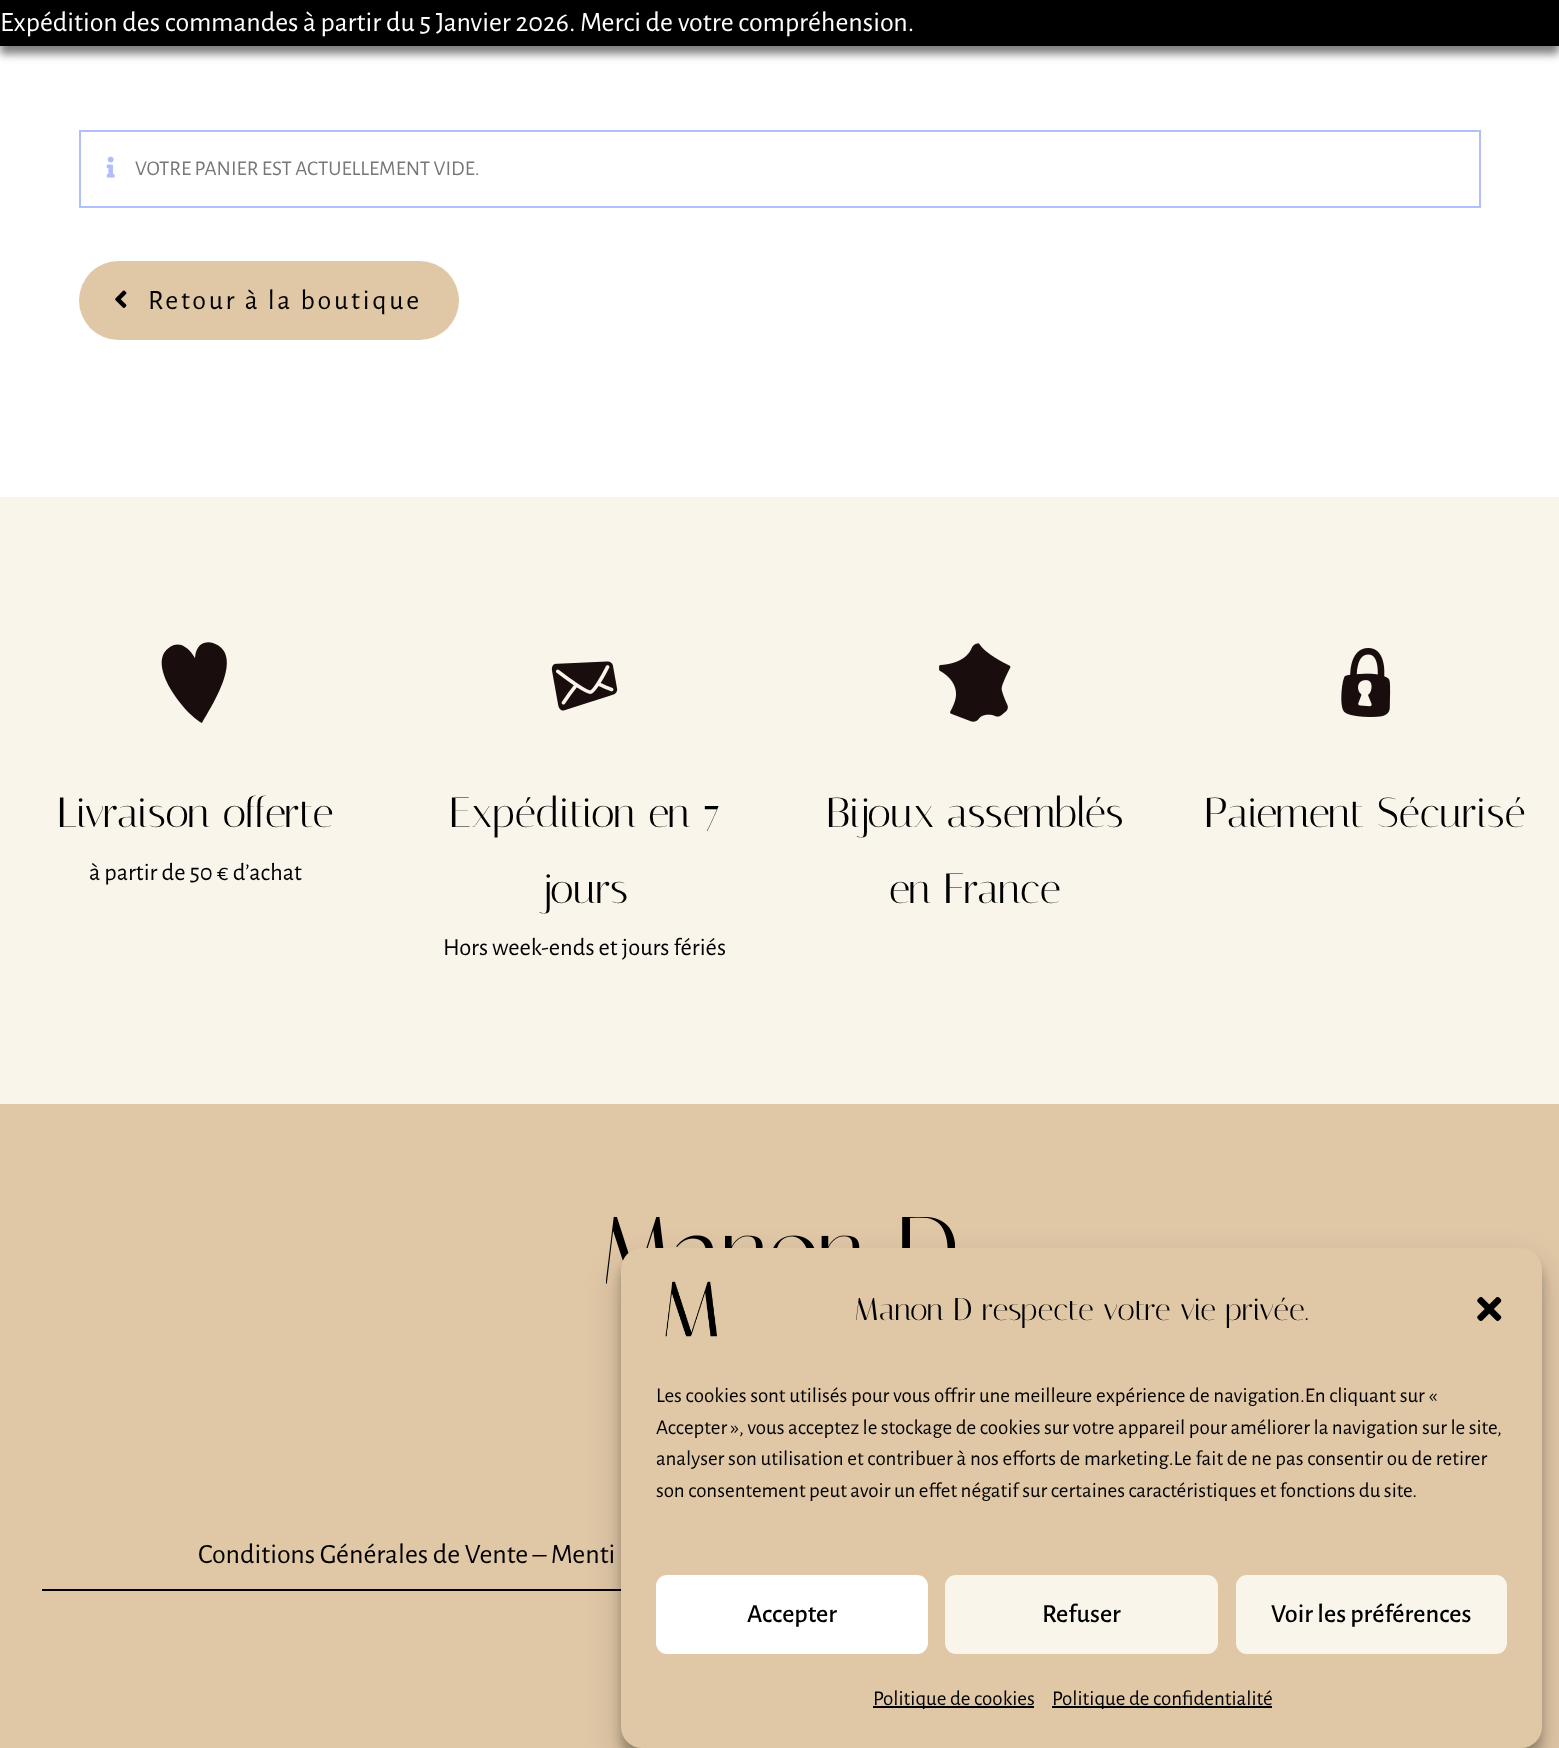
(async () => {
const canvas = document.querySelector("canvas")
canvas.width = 1559
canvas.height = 1748
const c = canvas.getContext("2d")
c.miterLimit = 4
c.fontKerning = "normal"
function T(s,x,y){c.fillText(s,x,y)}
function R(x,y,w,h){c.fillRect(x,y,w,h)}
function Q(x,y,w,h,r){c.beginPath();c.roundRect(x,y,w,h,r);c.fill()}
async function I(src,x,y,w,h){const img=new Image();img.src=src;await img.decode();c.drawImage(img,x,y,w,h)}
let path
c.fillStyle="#fff"
R(0,0,1559,1748)
c.fillStyle="#00000080"
c.filter="blur(4.5px)"
c.beginPath()
c.rect(0,9,1559,45)
c.fill()
c.filter="none"
c.fillStyle="#000"
R(0,0,1559,46)
c.font="28px Alegreya Sans"
c.fillStyle="#fff"
T("Expédition des commandes à partir du 5 Janvier 2026. Merci de votre compréhension.",0,31)
c.strokeStyle="#b1befd"
c.lineWidth=2
c.strokeRect(80,131,1400,76)
await I("1.png",106,156,9,22)
c.font="21px Alegreya Sans"
c.fillStyle="#777"
T("VOTRE PANIER EST ACTUELLEMENT VIDE.",135,175)
c.fillStyle="#e0c7a6"
Q(79,261,380,79,39.5)
await I("2.png",115,290,12,18)
c.letterSpacing="2.75px"
c.font="28px Alegreya Sans"
c.fillStyle="#000"
T("Retour à la boutique",148,309)
c.fillStyle="#faf5eb"
R(0,497,1559,607)
c.fillStyle="#190d0e"
path = new Path2D("M195 658c0 0-9-17-21-13c-33 13 9 68 28 78c9-16 44-69 11-80c-7-2-17 0-18 15z")
c.fill(path)
c.letterSpacing="0px"
c.font="42px Italiana"
c.fillStyle="#000"
T("Livraison offerte",57,827)
c.font="24.5px Alegreya Sans"
T("à partir de 50 € d’achat",89,880)
await I("3.png",551,661,67,50)
c.font="42px Italiana"
T("Expédition en 7",449,827)
T("jours",542,903)
c.font="24.5px Alegreya Sans"
T("Hors week-ends et jours fériés",443,955)
await I("4.png",939,643,72,79)
c.font="42px Italiana"
T("Bijoux assemblés",826,827)
T("en France",889,903)
await I("5.png",1341,648,50,69)
T("Paiement Sécurisé",1204,827)
c.fillStyle="#e0c7a6"
R(0,1104,1559,644)
await I("6.png",606,1217,349,67)
c.font="28px Alegreya Sans"
c.fillStyle="#000"
T("Conditions Générales de Vente – Menti",198,1563)
R(42,1589,579,2)
c.fillStyle="#0000003b"
c.filter="blur(5px)"
c.beginPath()
c.roundRect(621,1258,921,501,21)
c.fill()
c.filter="none"
c.fillStyle="#00000030"
c.filter="blur(17.5px)"
c.beginPath()
c.roundRect(621,1265,921,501,21)
c.fill()
c.filter="none"
c.fillStyle="#e0c7a6"
Q(621,1248,921,500,21)
await I("7.png",665,1281,52,56)
c.font="31.5px Italiana"
c.fillStyle="#000"
T("Manon D respecte votre vie privée.",854,1320)
await I("8.png",1477,1297,25,24)
c.wordSpacing="0.25px"
c.font="21px Alegreya Sans"
T("Les cookies sont utilisés pour vous offrir une meilleure expérience de navigation.En cliquant sur «",656,1402)
c.wordSpacing="0px"
T("Accepter », vous acceptez le stockage de cookies sur votre appareil pour améliorer la navigation sur le site,",656,1434)
c.wordSpacing="0.25px"
T("analyser son utilisation et contribuer à nos efforts de marketing.Le fait de ne pas consentir ou de retirer",656,1465)
c.wordSpacing="0px"
T("son consentement peut avoir un effet négatif sur certaines caractéristiques et fonctions du site.",656,1497)
c.fillStyle="#fff"
c.beginPath()
c.roundRect(657,1576,270,77,10)
c.fill()
c.strokeStyle="#fff"
c.stroke()
c.font="500 26.25px Alegreya Sans"
c.fillStyle="#000"
T("Accepter",747,1622)
c.fillStyle="#faf5eb"
c.beginPath()
c.roundRect(946,1576,271,77,10)
c.fill()
c.strokeStyle="#faf5eb"
c.stroke()
c.fillStyle="#000"
T("Refuser",1042,1622)
c.fillStyle="#faf5eb"
c.beginPath()
c.roundRect(1237,1576,269,77,10)
c.fill()
c.stroke()
c.fillStyle="#000"
T("Voir les préférences",1271,1622)
R(873,1706,161,2)
c.font="21px Alegreya Sans"
T("Politique de cookies",873,1705)
R(1052,1706,220,2)
T("Politique de confidentialité",1052,1705)
})()
